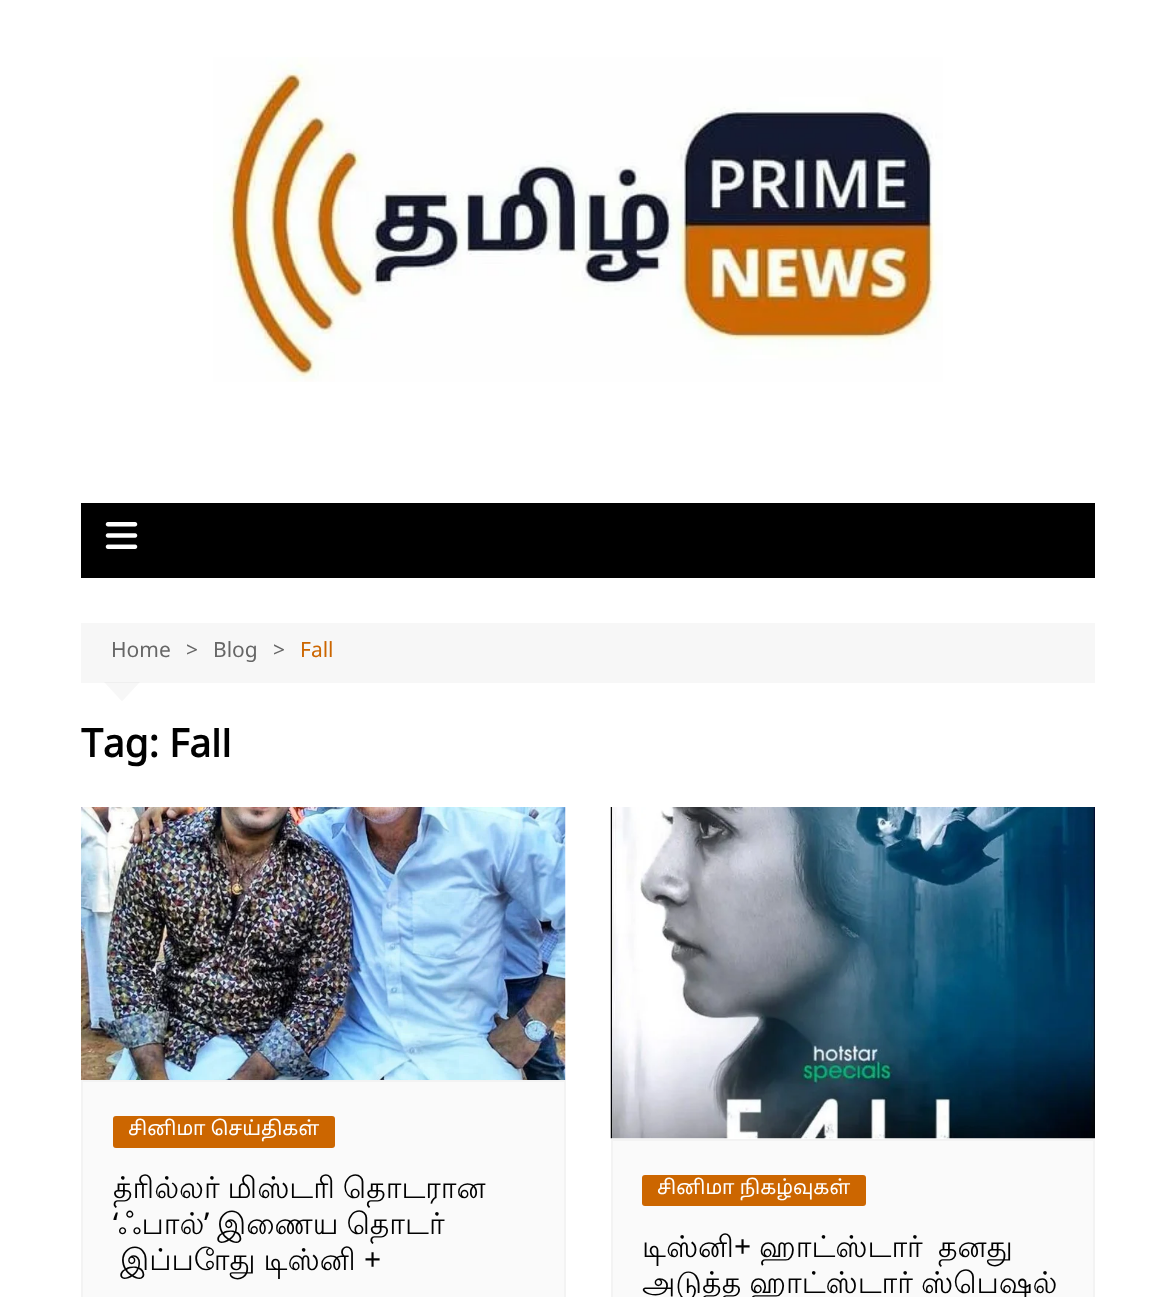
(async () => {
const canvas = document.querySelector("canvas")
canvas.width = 1175
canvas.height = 1297
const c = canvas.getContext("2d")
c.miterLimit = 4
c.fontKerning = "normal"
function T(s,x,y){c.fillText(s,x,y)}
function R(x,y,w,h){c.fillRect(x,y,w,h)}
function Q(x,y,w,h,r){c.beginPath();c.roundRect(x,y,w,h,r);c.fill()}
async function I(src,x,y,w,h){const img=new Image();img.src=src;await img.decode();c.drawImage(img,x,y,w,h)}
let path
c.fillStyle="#fff"
R(0,0,1175,1297)
await I("1.png",213,57,730,325)
c.fillStyle="#000"
R(81,503,1014,75)
await I("2.png",105,522,33,27)
c.fillStyle="#f7f7f7"
R(81,623,1014,60)
c.font="21px Noto Sans Tamil"
c.fillStyle="#666"
T("Home",111,657)
T(">",186,657)
T("Blog",213,657)
T(">",273,657)
c.fillStyle="#c60"
T("Fall",300,657)
c.fillStyle="#00000008"
path = new Path2D("M104 682h36l-18 19.5z")
c.fill(path)
c.font="bold 39px Noto Sans Tamil Supplement"
c.fillStyle="#010101"
T("Tag:",81,757)
c.save()
c.beginPath()
c.rect(81,728,1014,42)
c.clip()
T("Fall",169,757)
c.restore()
await I("3.png",81,807,485,273)
c.fillStyle="#fafafa"
c.beginPath()
c.rect(82,1081,483,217)
c.fill()
c.strokeStyle="#f3f3f3"
c.lineWidth=2
c.stroke()
c.fillStyle="#c60"
Q(113,1116,222,32,3)
c.font="19.5px Noto Sans Tamil"
c.fillStyle="#fff"
T("சினிமா செய்திகள்",128,1135)
c.wordSpacing="-1px"
c.font="30px Lohit Tamil"
c.fillStyle="#010101"
T("த்ரில்லர் மிஸ்டரி தொடரான",113,1198)
c.wordSpacing="0px"
c.font="30px Noto Sans Tamil Supplement"
T("‘",113,1234)
c.font="30px Lohit Tamil"
T("ஃபால்",118,1234)
c.font="30px Noto Sans Tamil Supplement"
T("’",204,1234)
c.wordSpacing="-1px"
c.font="30px Lohit Tamil"
T("இணைய தொடர்",217,1234)
T("இப்போது டிஸ்னி",120,1270)
c.wordSpacing="0px"
c.font="30px Noto Sans Tamil Supplement"
T("+",364,1270)
await I("4.png",610,807,485,332)
c.fillStyle="#fafafa"
c.beginPath()
c.rect(612,1140,482,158)
c.fill()
c.stroke()
c.fillStyle="#c60"
Q(642,1175,224,31,3)
c.font="19.5px Noto Sans Tamil"
c.fillStyle="#fff"
T("சினிமா நிகழ்வுகள்",657,1194)
c.font="30px Lohit Tamil"
c.fillStyle="#010101"
T("டிஸ்னி",642,1257)
c.font="30px Noto Sans Tamil Supplement"
T("+",734,1257)
c.font="30px Lohit Tamil"
T("ஹாட்ஸ்டார்",759,1257)
T("தனது",938,1257)
c.wordSpacing="-1px"
T("அடுத்த ஹாட்ஸ்டார் ஸ்பெஷல்",642,1293)
})()
